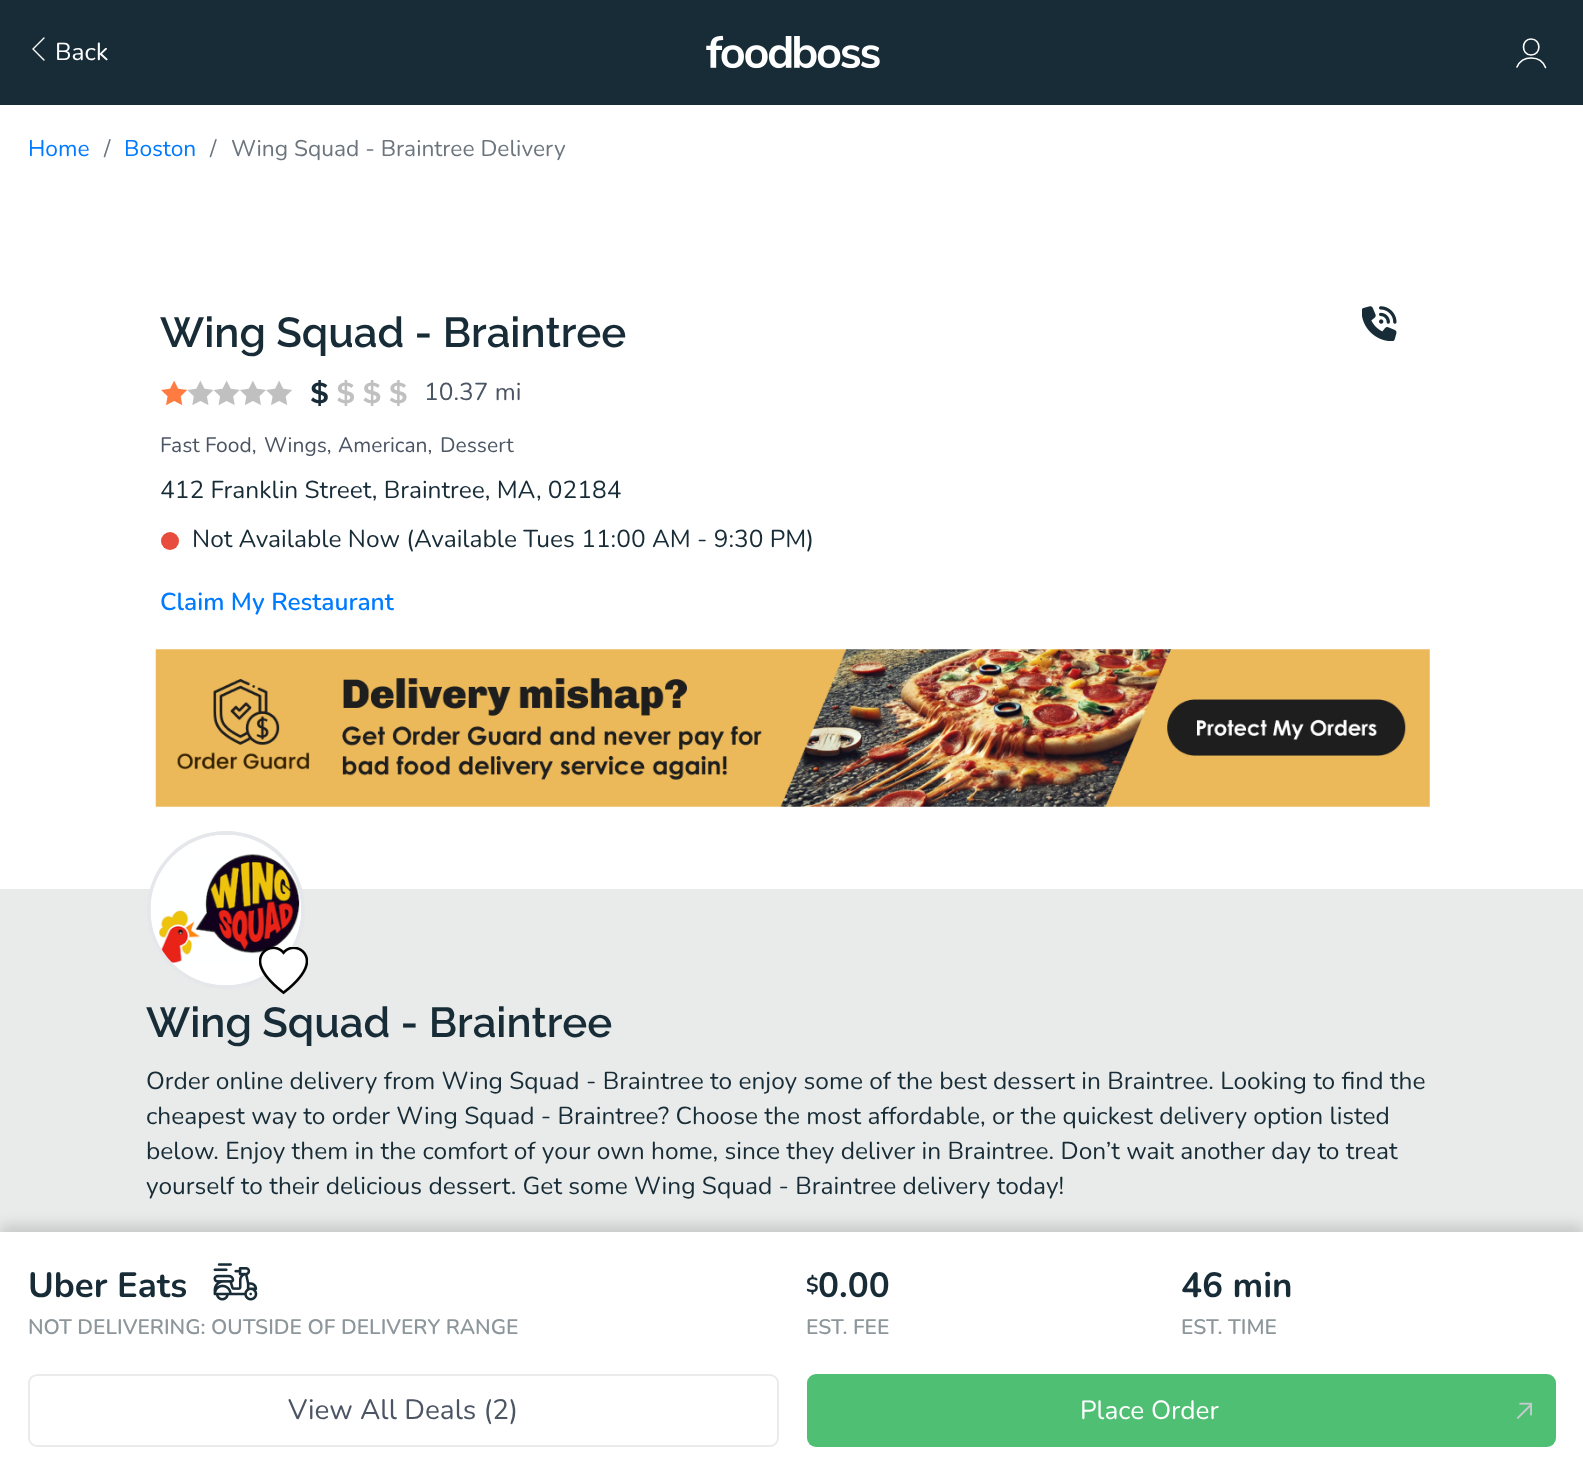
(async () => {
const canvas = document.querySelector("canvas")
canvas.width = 1583
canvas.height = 1475
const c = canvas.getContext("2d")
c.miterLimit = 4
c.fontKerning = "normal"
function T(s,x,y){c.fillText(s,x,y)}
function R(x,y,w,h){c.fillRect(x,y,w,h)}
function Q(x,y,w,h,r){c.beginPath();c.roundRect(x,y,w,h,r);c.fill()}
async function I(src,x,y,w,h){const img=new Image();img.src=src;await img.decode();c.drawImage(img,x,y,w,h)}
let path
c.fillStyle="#fff"
R(0,0,1583,1475)
c.fillStyle="#182c37"
R(0,0,1583,105)
path = new Path2D("M44 60l-11-11l11-11")
c.strokeStyle="#fff"
c.lineWidth=1.4
c.lineCap="round"
c.stroke(path)
c.font="24.5px Nunito"
c.fillStyle="#fff"
T("Back",55,60)
await I("1.png",706,35,174,34)
path = new Path2D("M1517 67c5.5-12 23.5-12 28.5 .5m-14.5-12.5c-10 0-10-16 0-16c10.5 0 10.5 16 0 16z")
c.lineWidth=1.6
c.stroke(path)
c.font="22.75px Nunito"
c.fillStyle="#007bff"
T("Home",28,156)
c.fillStyle="#6c757d"
T("/",104,156)
c.fillStyle="#007bff"
T("Boston",124,156)
c.fillStyle="#6c757d"
T("/",210,156)
T("Wing Squad - Braintree Delivery",231,156)
c.font="600 42px Raleway"
c.fillStyle="#182c37"
T("Wing Squad - Braintree",160,347)
await I("2.png",1362,306,35,35)
await I("3.png",161,380,26,26)
await I("4.png",187,380,27,25)
await I("5.png",214,380,26,25)
await I("6.png",240,380,26,25)
await I("7.png",266,380,26,25)
await I("8.png",311,380,17,26)
await I("9.png",337,380,17,26)
await I("10.png",363,380,18,26)
await I("11.png",389,380,18,26)
c.font="24.5px Nunito"
c.fillStyle="#4b5563"
T("10.37 mi",424,400)
c.font="21px Nunito"
T("Fast Food,",160,452)
T("Wings,",264,452)
T("American,",338,452)
T("Dessert",440,452)
c.font="24.5px Nunito"
c.fillStyle="#182c37"
T("412 Franklin Street, Braintree, MA, 02184",160,498)
c.fillStyle="#e74c3c"
c.beginPath()
c.arc(170,541,9,0,7)
c.fill()
c.fillStyle="#182c37"
T("Not Available Now (Available Tues 11:00 AM - 9:30 PM)",192,547)
c.font="600 24.5px Nunito"
c.fillStyle="#007bff"
T("Claim My Restaurant",160,610)
await I("12.png",155,649,1275,158)
c.fillStyle="#e8ebe9"
R(0,889,1583,343)
c.fillStyle="#fff"
c.beginPath()
c.arc(226,910,77,0,7)
c.fill()
c.strokeStyle="#e5e7eb"
c.lineWidth=4
c.stroke()
await I("13.png",150,835,151,150)
await I("14.png",259,947,49,48)
c.font="600 42px Raleway"
c.fillStyle="#182c37"
T("Wing Squad - Braintree",146,1037)
c.font="24.5px Nunito"
T("Order online delivery from Wing Squad - Braintree to enjoy some of the best dessert in Braintree. Looking to find the",146,1089)
T("cheapest way to order Wing Squad - Braintree? Choose the most affordable, or the quickest delivery option listed",146,1124)
T("below. Enjoy them in the comfort of your own home, since they deliver in Braintree. Don’t wait another day to treat",146,1159)
T("yourself to their delicious dessert. Get some Wing Squad - Braintree delivery today!",146,1194)
c.fillStyle="#00000024"
c.filter="blur(7px)"
c.beginPath()
c.rect(0,1225,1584,243)
c.fill()
c.filter="none"
c.fillStyle="#fff"
R(0,1232,1583,243)
c.font="bold 35px Nunito"
c.fillStyle="#182c37"
T("Uber Eats",28,1297)
await I("15.png",213,1263,45,38)
c.font="600 21px Nunito"
c.fillStyle="#8c969b"
T("NOT DELIVERING: OUTSIDE OF DELIVERY RANGE",28,1334)
c.font="bold 21px Nunito"
c.fillStyle="#182c37"
T("$",806,1292)
c.font="bold 35px Nunito"
T("0.00",818,1297)
c.font="600 21px Nunito"
c.fillStyle="#8c969b"
T("EST. FEE",806,1334)
c.font="bold 35px Nunito"
c.fillStyle="#182c37"
T("46 min",1181,1297)
c.font="600 21px Nunito"
c.fillStyle="#8c969b"
T("EST. TIME",1181,1334)
c.beginPath()
c.roundRect(29,1375,749,71,8)
c.strokeStyle="#ebebec"
c.lineWidth=2
c.stroke()
c.font="28px Nunito"
c.fillStyle="#4b5563"
T("View All Deals (2)",288,1419)
c.fillStyle="#4fbf74"
Q(807,1374,749,73,9)
c.font="26.25px Nunito"
c.fillStyle="#fff"
T("Place Order",1080,1419)
await I("16.png",1516,1402,16,17)
})()
